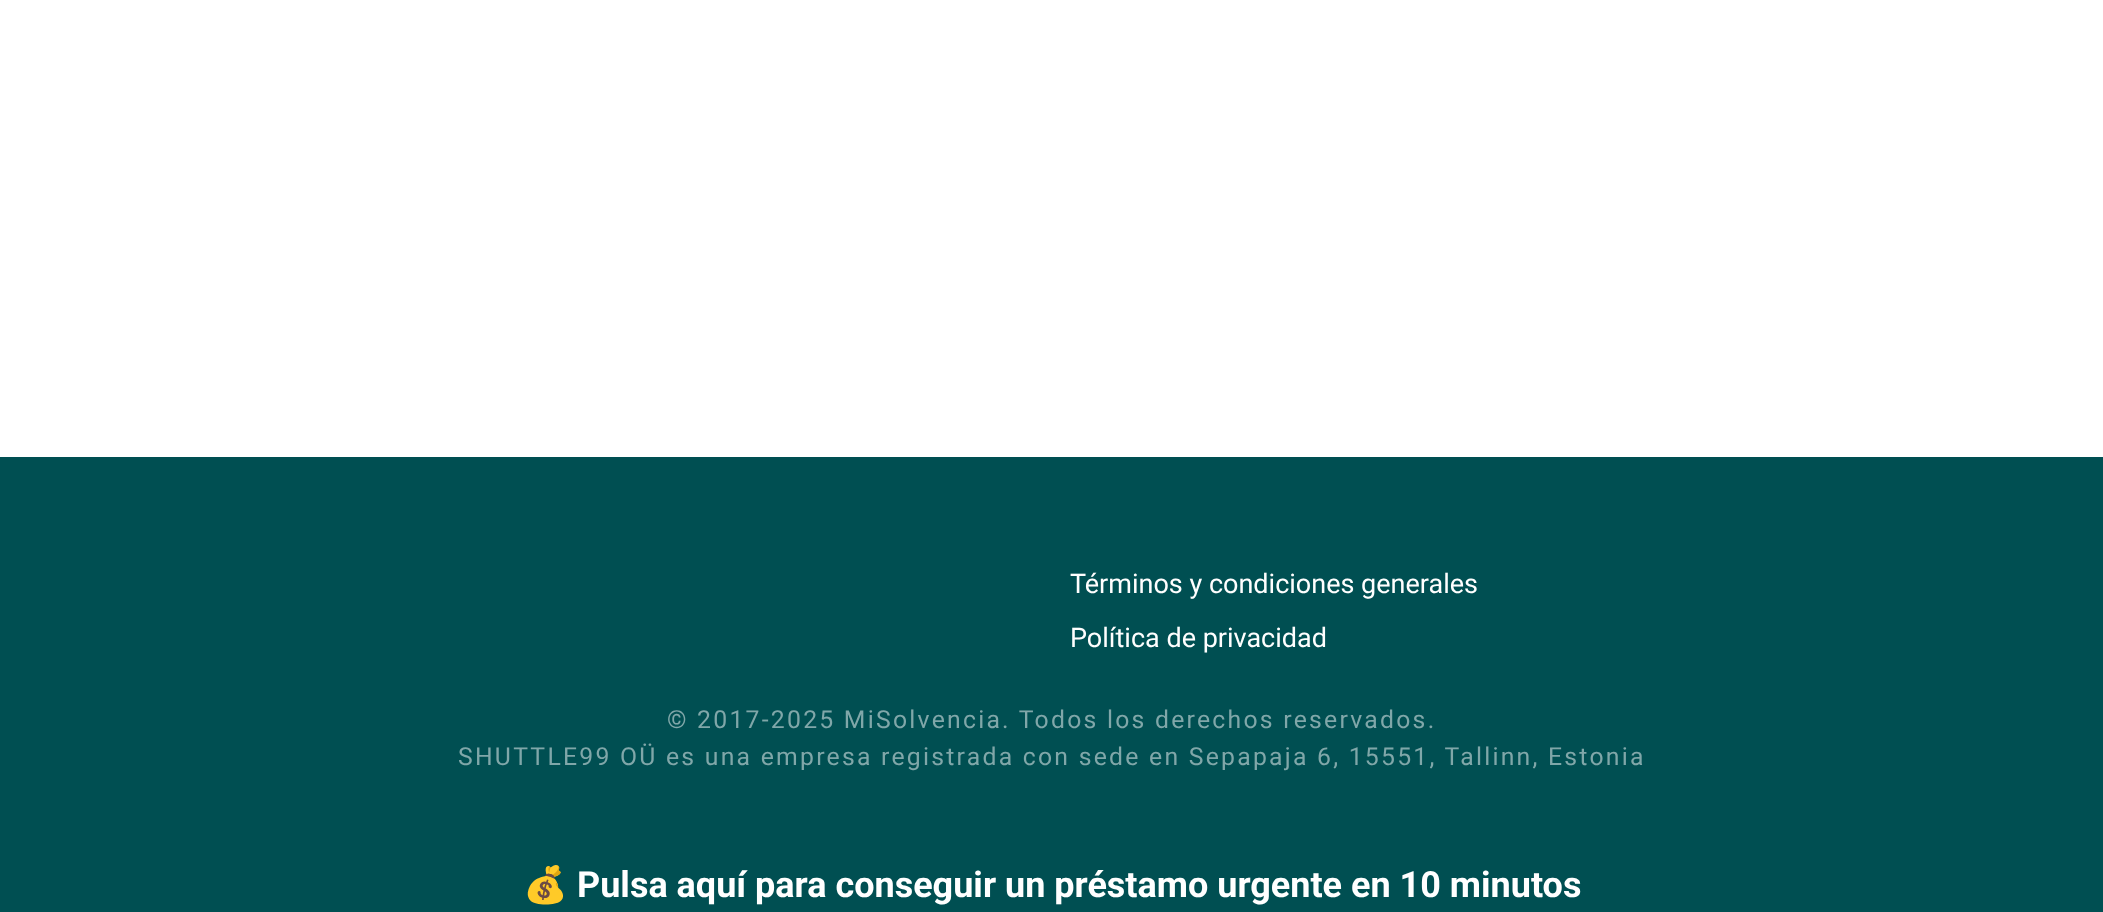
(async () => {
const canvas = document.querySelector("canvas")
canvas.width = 2103
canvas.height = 912
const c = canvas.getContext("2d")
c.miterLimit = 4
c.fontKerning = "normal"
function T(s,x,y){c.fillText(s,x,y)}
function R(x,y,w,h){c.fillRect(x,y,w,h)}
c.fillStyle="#fff"
R(0,0,2103,912)
c.fillStyle="#004f52"
R(0,457,2103,455)
c.font="27px Roboto"
c.fillStyle="#fff"
T("Términos y condiciones generales",1070,593)
T("Política de privacidad",1070,647)
c.letterSpacing="2.25px"
c.font="24.75px Roboto"
c.fillStyle="#80a7a9"
T("© 2017-2025 MiSolvencia. Todos los derechos reservados.",667,728)
T("SHUTTLE99 OÜ es una empresa registrada con sede en Sepapaja 6, 15551, Tallinn, Estonia",458,765)
c.letterSpacing="0px"
c.font="bold 36px Noto Color Emoji"
c.fillStyle="#fff"
T("💰",523,897)
c.font="bold 36px Roboto"
T("Pulsa aquí para conseguir un préstamo urgente en 10 minutos",577,897)
})()
